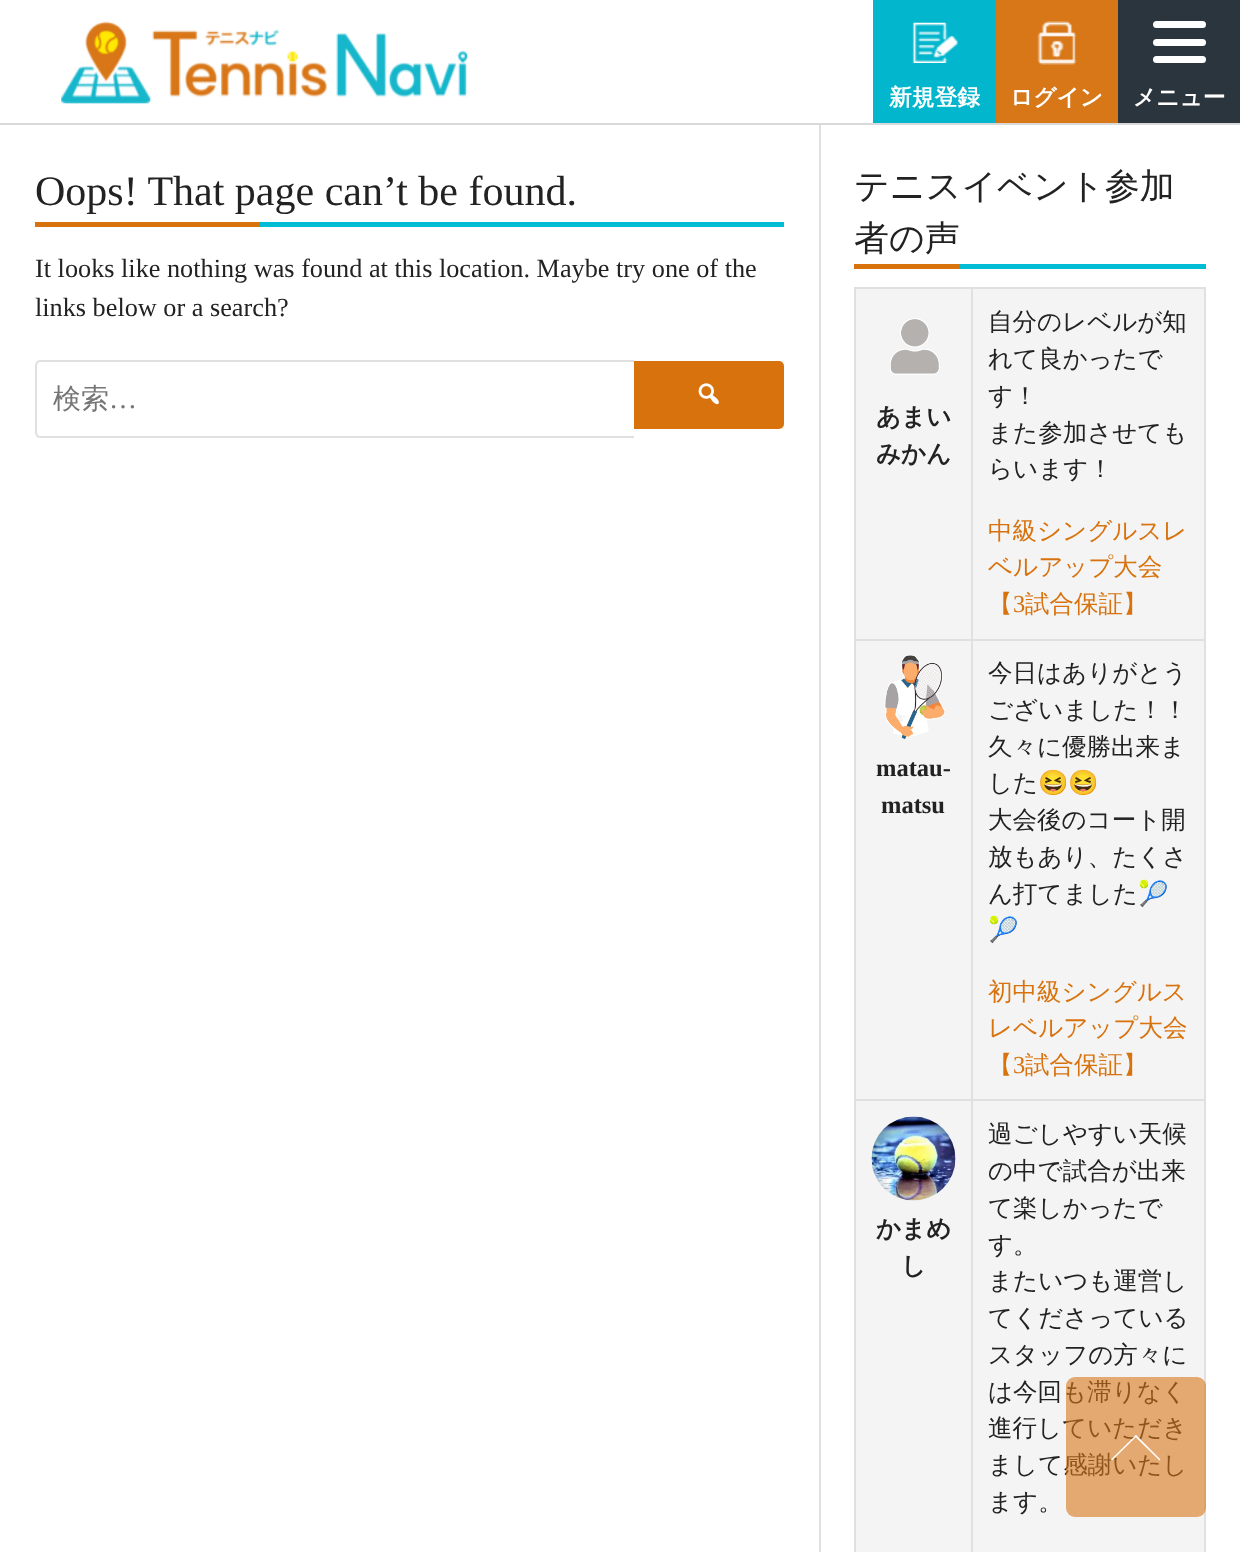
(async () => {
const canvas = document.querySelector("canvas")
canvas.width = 1240
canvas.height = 1552
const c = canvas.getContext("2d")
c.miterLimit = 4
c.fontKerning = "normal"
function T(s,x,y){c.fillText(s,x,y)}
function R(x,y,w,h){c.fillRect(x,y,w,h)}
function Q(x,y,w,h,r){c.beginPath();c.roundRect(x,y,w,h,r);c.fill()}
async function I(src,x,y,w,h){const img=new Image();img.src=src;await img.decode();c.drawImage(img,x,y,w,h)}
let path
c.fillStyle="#fff"
R(0,0,1240,1552)
c.fillStyle="#e0e0e0"
R(819,124,2,1428)
c.fillStyle="#d9d9d9"
R(0,123,1240,2)
await I("1.png",61,21,407,83)
c.fillStyle="#02b6cd"
R(873,0,123,123)
await I("2.png",912,22,46,41)
c.font="bold 22.75px WenQuanYi Zen Hei"
c.fillStyle="#fff"
T("新規登録",889,105)
c.fillStyle="#d87718"
R(996,0,122,123)
await I("3.png",1037,21,40,44)
c.fillStyle="#fff"
T("ログイン",1010,105)
c.fillStyle="#2b353e"
R(1118,0,122,123)
c.fillStyle="#fff"
Q(1153,21,53,7,3.5)
Q(1153,39,53,7,3.5)
Q(1153,56,53,7,3.5)
T("メニュー",1133,105)
c.fillStyle="#00bcd4"
R(259,222,525,5)
c.font="42px Liberation Serif"
c.fillStyle="#222"
T("Oops! That page can’t be found.",35,205)
c.fillStyle="#d8720d"
R(35,222,224,5)
c.font="26.25px Liberation Serif"
c.fillStyle="#222"
T("It looks like nothing was found at this location. Maybe try one of the",35,277)
T("links below or a search?",35,316)
c.fillStyle="#e0e0e0"
path = new Path2D("M40 360h594v78h-594c-3 0-5-3-5-6v-66c0-3 2-6 5-6zm0 2h594v74h-594c-2 0-3-2-3-4v-66c0-2 1-4 3-4z")
c.fill(path,"evenodd")
c.font="500 28px WenQuanYi Zen Hei"
c.fillStyle="#757575"
T("検索",53,408)
c.font="28px Liberation Serif"
T("…",109,408)
c.fillStyle="#d8720d"
c.beginPath()
c.roundRect(634,361,150,68,[0,5,5,0])
c.fill()
await I("4.png",698,383,21,22)
c.fillStyle="#00bcd4"
R(959,264,247,5)
c.font="500 35px WenQuanYi Zen Hei"
c.fillStyle="#222"
T("テニスイベント参加",854,198)
T("者の声",854,250)
c.fillStyle="#d8720d"
R(854,264,105,5)
c.fillStyle="#f4f4f4"
R(856,289,348,1263)
c.fillStyle="#e0e0e0"
R(854,287,352,2)
R(1204,287,2,1265)
R(854,287,2,1265)
await I("5.png",890,318,50,57)
c.font="bold 24.5px WenQuanYi Zen Hei"
c.fillStyle="#222"
T("あまい",876,425)
T("みかん",876,462)
c.fillStyle="#e0e0e0"
R(971,639,235,2)
R(971,1099,235,2)
R(971,1099,2,453)
R(854,1099,119,2)
R(971,639,2,462)
R(854,639,119,2)
R(971,287,2,354)
c.font="500 24.5px WenQuanYi Zen Hei"
c.fillStyle="#222"
T("自分のレベルが知",988,330)
T("れて良かったで",988,367)
T("す！",988,404)
T("また参加させても",988,441)
T("らいます！",988,477)
c.fillStyle="#d8720d"
T("中級シングルスレ",988,539)
T("ベルアップ大会",988,575)
T("【",988,612)
c.font="24.5px Liberation Serif"
T("3",1013,612)
c.font="500 24.5px WenQuanYi Zen Hei"
T("試合保証】",1025,612)
await I("6.png",884,655,61,84)
c.font="bold 24.5px Liberation Serif"
c.fillStyle="#222"
T("matau-",876,776)
T("matsu",881,813)
c.font="500 24.5px WenQuanYi Zen Hei"
T("今日はありがとう",988,681)
T("ございました！！",988,718)
T("久々に優勝出来ま",988,755)
T("した",988,791)
c.font="24.5px Noto Color Emoji"
T("😆😆",1038,791)
c.font="500 24.5px WenQuanYi Zen Hei"
T("大会後のコート開",988,828)
T("放もあり、たくさ",988,865)
T("ん打てました",988,902)
c.font="24.5px Noto Color Emoji"
T("🎾",1138,902)
T("🎾",988,938)
c.font="500 24.5px WenQuanYi Zen Hei"
c.fillStyle="#d8720d"
T("初中級シングルス",988,1000)
T("レベルアップ大会",988,1036)
T("【",988,1073)
c.font="24.5px Liberation Serif"
T("3",1013,1073)
c.font="500 24.5px WenQuanYi Zen Hei"
T("試合保証】",1025,1073)
await I("7.png",871,1116,85,85)
c.font="bold 24.5px WenQuanYi Zen Hei"
c.fillStyle="#222"
T("かまめ",876,1237)
T("し",901,1274)
c.font="500 24.5px WenQuanYi Zen Hei"
T("過ごしやすい天候",988,1142)
T("の中で試合が出来",988,1179)
T("て楽しかったで",988,1216)
T("す。",988,1253)
T("またいつも運営し",988,1289)
T("てくださっている",988,1326)
T("スタッフの方々に",988,1363)
T("は今回も滞りなく",988,1400)
T("進行していただき",988,1436)
T("まして感謝いたし",988,1473)
T("ます。",988,1510)
c.fillStyle="#d8771799"
Q(1066,1377,140,140,9)
c.fillStyle="#fff"
path = new Path2D("M1136 1435l24.5 24.5l-1 1l-25-24.5z")
c.fill(path)
path = new Path2D("M1136 1435l1 1l-25 24.5l-1-1z")
c.fill(path)
})()
